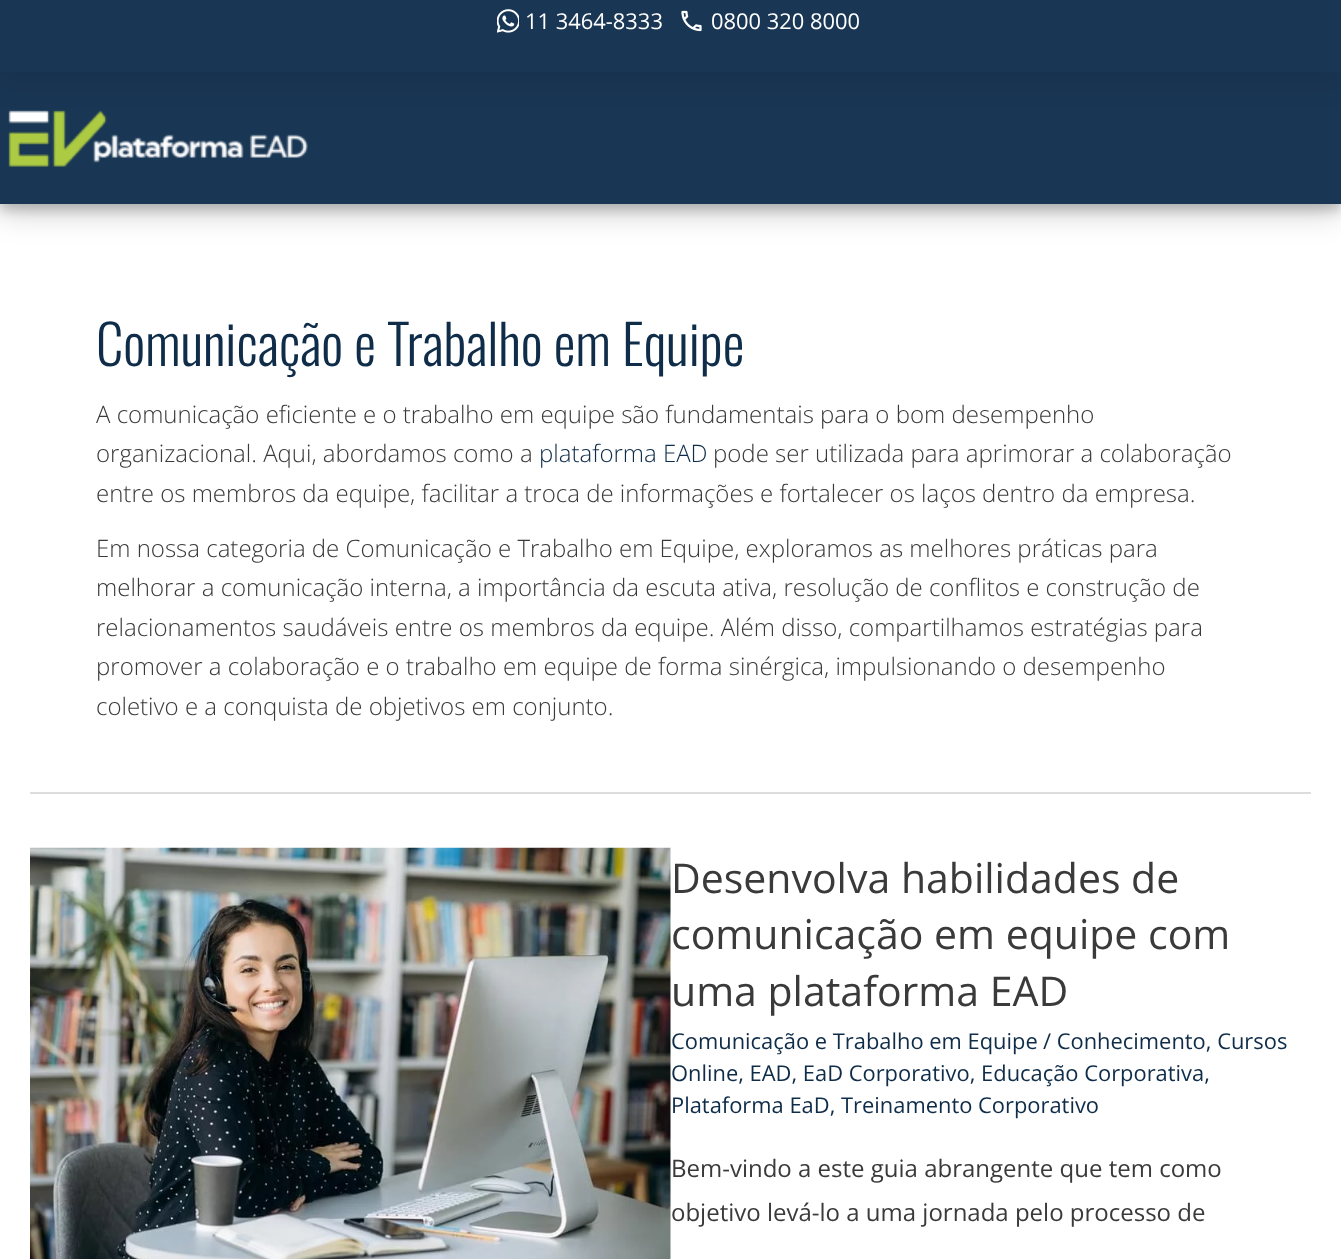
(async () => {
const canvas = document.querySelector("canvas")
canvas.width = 1341
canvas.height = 1259
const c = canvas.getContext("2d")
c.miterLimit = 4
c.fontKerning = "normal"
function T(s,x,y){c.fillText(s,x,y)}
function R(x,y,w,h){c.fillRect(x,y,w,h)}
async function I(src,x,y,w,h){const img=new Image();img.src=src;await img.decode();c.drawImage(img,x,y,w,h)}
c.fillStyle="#fff"
R(0,0,1341,1259)
c.fillStyle="#00000030"
c.filter="blur(15px)"
c.beginPath()
c.rect(0,81,1341,132)
c.fill()
c.filter="none"
c.fillStyle="#00000033"
c.filter="blur(6px)"
c.beginPath()
c.rect(0,78,1341,132)
c.fill()
c.filter="none"
c.fillStyle="#193654"
R(0,72,1341,132)
await I("3.png",8,110,300,57)
c.fillStyle="#00000017"
c.filter="blur(15px)"
c.beginPath()
c.rect(0,9,1341,72)
c.fill()
c.filter="none"
c.fillStyle="#193654"
R(0,0,1341,72)
await I("1.png",497,9,22,24)
c.font="21.9px Open Sans"
c.fillStyle="#fff"
T("11 3464-8333",525,29)
await I("2.png",681,10,21,22)
T("0800 320 8000",711,29)
c.fillStyle="#ddd"
R(30,792,1281,2)
c.font="300 54.75px Oswald"
c.fillStyle="#0f2c49"
T("Comunicação e Trabalho em Equipe",96,366)
c.font="300 24px Open Sans"
c.fillStyle="#3a3a3a"
T("A comunicação eficiente e o trabalho em equipe são fundamentais para o bom desempenho",96,423)
T("organizacional. Aqui, abordamos como a",96,462)
c.fillStyle="#0f2c49"
T("plataforma EAD",539,462)
c.fillStyle="#3a3a3a"
T("pode ser utilizada para aprimorar a colaboração",713,462)
T("entre os membros da equipe, facilitar a troca de informações e fortalecer os laços dentro da empresa.",96,502)
T("Em nossa categoria de Comunicação e Trabalho em Equipe, exploramos as melhores práticas para",96,557)
T("melhorar a comunicação interna, a importância da escuta ativa, resolução de conflitos e construção de",96,596)
T("relacionamentos saudáveis entre os membros da equipe. Além disso, compartilhamos estratégias para",96,636)
T("promover a colaboração e o trabalho em equipe de forma sinérgica, impulsionando o desempenho",96,675)
T("coletivo e a conquista de objetivos em conjunto.",96,715)
await I("4.png",30,847,641,412)
c.font="41px Open Sans"
T("Desenvolva habilidades de",671,893)
T("comunicação em equipe com",671,949)
T("uma plataforma EAD",671,1006)
c.font="21.9px Open Sans"
c.fillStyle="#0f2c49"
T("Comunicação e Trabalho em Equipe",671,1049)
T("/ Conhecimento, Cursos",1043,1049)
T("Online, EAD, EaD Corporativo, Educação Corporativa,",671,1081)
T("Plataforma EaD, Treinamento Corporativo",671,1113)
c.font="24px Open Sans"
c.fillStyle="#3a3a3a"
T("Bem-vindo a este guia abrangente que tem como",671,1177)
T("objetivo levá-lo a uma jornada pelo processo de",671,1221)
})()
